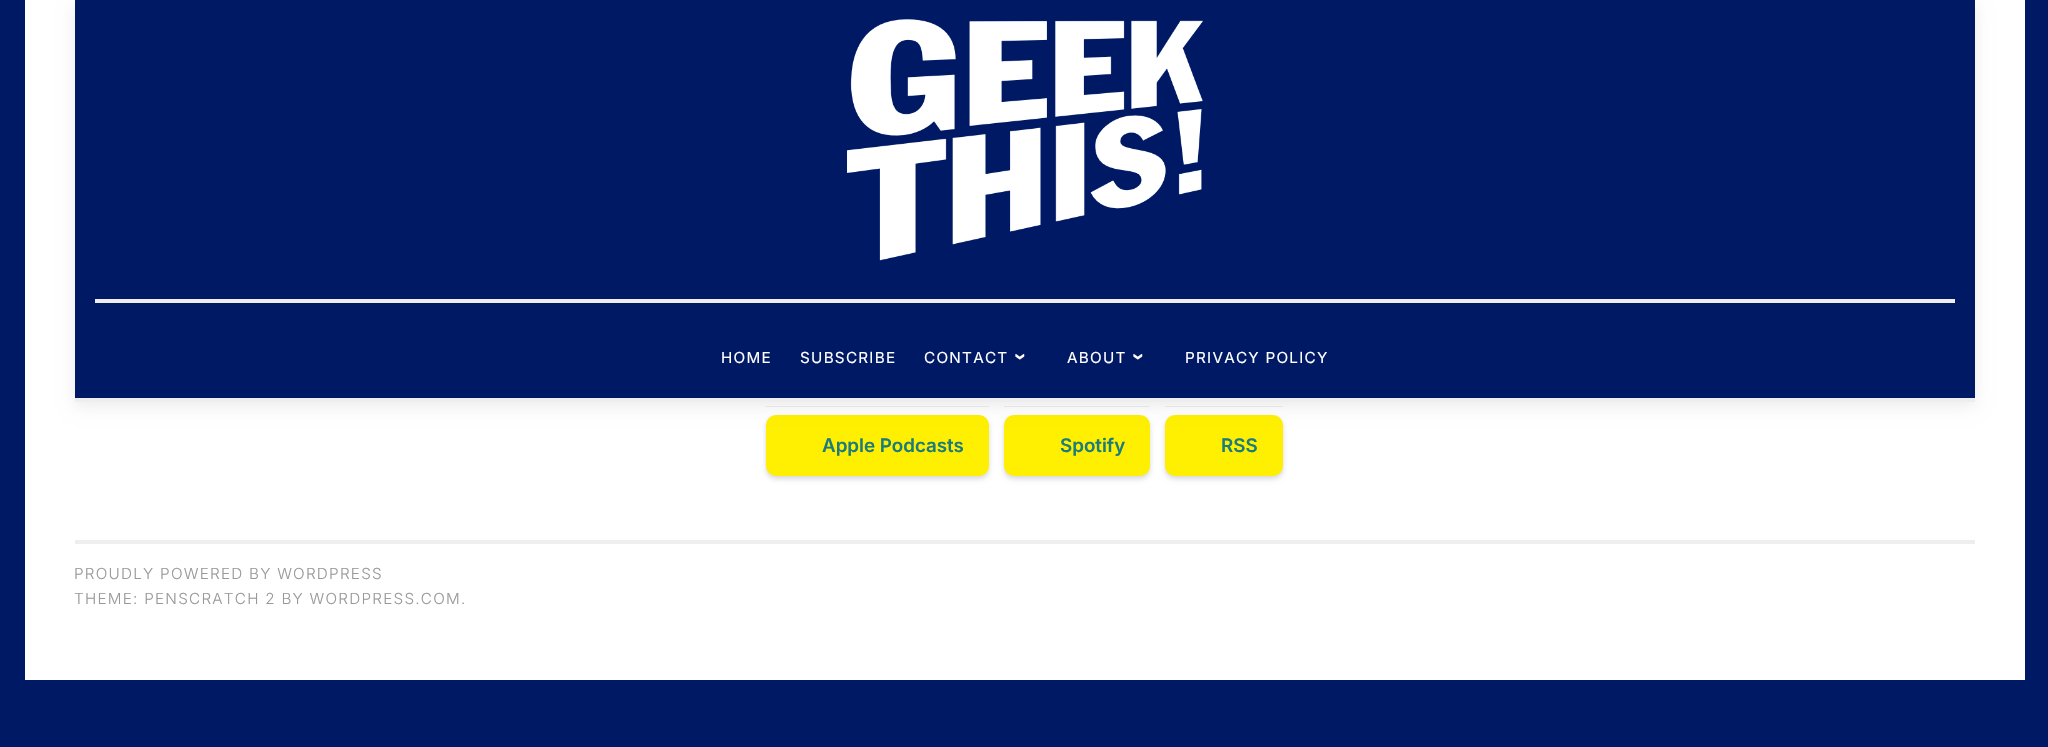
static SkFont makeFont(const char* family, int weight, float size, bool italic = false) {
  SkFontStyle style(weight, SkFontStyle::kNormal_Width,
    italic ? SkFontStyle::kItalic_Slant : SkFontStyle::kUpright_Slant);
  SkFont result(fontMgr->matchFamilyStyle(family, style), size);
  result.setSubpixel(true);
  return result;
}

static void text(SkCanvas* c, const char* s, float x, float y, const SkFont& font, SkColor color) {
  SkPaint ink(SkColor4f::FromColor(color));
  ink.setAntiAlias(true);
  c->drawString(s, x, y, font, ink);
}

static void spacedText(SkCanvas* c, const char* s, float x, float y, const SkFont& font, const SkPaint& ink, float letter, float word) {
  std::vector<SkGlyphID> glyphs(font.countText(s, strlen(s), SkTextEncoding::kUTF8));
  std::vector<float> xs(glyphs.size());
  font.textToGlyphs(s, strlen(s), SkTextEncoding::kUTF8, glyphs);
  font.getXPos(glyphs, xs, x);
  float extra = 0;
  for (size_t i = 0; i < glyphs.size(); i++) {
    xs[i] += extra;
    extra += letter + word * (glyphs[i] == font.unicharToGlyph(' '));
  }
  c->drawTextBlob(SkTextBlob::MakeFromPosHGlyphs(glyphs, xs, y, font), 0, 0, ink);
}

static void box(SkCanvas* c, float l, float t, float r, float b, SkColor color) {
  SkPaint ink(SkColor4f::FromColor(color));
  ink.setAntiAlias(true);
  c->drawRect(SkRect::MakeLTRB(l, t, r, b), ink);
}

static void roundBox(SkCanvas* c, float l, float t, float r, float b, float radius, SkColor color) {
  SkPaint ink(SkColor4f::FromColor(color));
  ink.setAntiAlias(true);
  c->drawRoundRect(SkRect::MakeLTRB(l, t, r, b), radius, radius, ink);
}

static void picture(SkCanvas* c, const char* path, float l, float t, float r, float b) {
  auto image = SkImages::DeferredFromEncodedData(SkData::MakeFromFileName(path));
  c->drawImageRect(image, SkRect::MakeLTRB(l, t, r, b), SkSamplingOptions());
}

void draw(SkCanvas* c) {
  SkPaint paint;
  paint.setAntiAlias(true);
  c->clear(0xff001964);
  box(c, 25, 0, 2025, 680, 0xffffffff);
  box(c, 766, 406, 989, 407, 0xffeeeeee);
  paint.setColor(0x26000000);
  paint.setMaskFilter(SkMaskFilter::MakeBlur(kNormal_SkBlurStyle, 2.5f));
  c->drawRoundRect(SkRect::MakeLTRB(766, 418, 989, 479), 10, 10, paint);
  paint.setMaskFilter(nullptr);
  roundBox(c, 766, 415, 989, 476, 10, 0xffffef00);
  box(c, 1004, 406, 1150, 407, 0xffeeeeee);
  paint.setMaskFilter(SkMaskFilter::MakeBlur(kNormal_SkBlurStyle, 2.5f));
  c->drawRoundRect(SkRect::MakeLTRB(1004, 418, 1150, 479), 10, 10, paint);
  paint.setMaskFilter(nullptr);
  roundBox(c, 1004, 415, 1150, 476, 10, 0xffffef00);
  box(c, 1165, 406, 1283, 407, 0xffeeeeee);
  paint.setMaskFilter(SkMaskFilter::MakeBlur(kNormal_SkBlurStyle, 2.5f));
  c->drawRoundRect(SkRect::MakeLTRB(1165, 418, 1283, 479), 10, 10, paint);
  paint.setMaskFilter(nullptr);
  roundBox(c, 1165, 415, 1283, 476, 10, 0xffffef00);
  paint.setColor(0x14000000);
  paint.setMaskFilter(SkMaskFilter::MakeBlur(kNormal_SkBlurStyle, 7.5f));
  c->drawRect(SkRect::MakeLTRB(75, 5, 1975, 406), paint);
  paint.setMaskFilter(nullptr);
  box(c, 75, 0, 1975, 398, 0xff001964);
  box(c, 75, 398, 1975, 402, 0xffeeeeee);
  picture(c, "img_01.png", 847, 19, 1203, 261);
  box(c, 95, 299, 1955, 303, 0xffeeeeee);
  SkFont face1 = makeFont("Inter", 400, 15.25f);
  paint.setColor(0xffffffff);
  spacedText(c, "HOME", 721, 363, face1, paint, 1.25f, 0);
  spacedText(c, "SUBSCRIBE", 800, 363, face1, paint, 1.25f, 0);
  spacedText(c, "CONTACT", 924, 363, face1, paint, 1.25f, 0);
  SkFont face2 = makeFont("Liberation Sans", 700, 22);
  c->save();
  c->rotate(90, 1014, 353);
  spacedText(c, "›", 1014, 353, face2, paint, 1.25f, 0);
  c->restore();
  spacedText(c, "ABOUT", 1067, 363, face1, paint, 1.25f, 0);
  c->save();
  c->rotate(90, 1132, 353);
  spacedText(c, "›", 1132, 353, face2, paint, 1.25f, 0);
  c->restore();
  spacedText(c, "PRIVACY POLICY", 1185, 363, face1, paint, 1.25f, 0);
  SkFont face3 = makeFont("Inter", 600, 18.75f);
  text(c, "Apple Podcasts", 822, 452, face3, 0xff1c7c7c);
  text(c, "Spotify", 1060, 452, face3, 0xff1c7c7c);
  text(c, "RSS", 1221, 452, face3, 0xff1c7c7c);
  box(c, 75, 540, 1975, 544, 0xffeeeeee);
  SkFont face4 = makeFont("Inter", 300, 15.25f);
  paint.setColor(0xff999999);
  spacedText(c, "PROUDLY POWERED BY WORDPRESS", 74, 579, face4, paint, 1.25f, 0);
  spacedText(c, "THEME: PENSCRATCH 2 BY WORDPRESS.COM.", 74, 604, face4, paint, 1.25f, 0);
}
